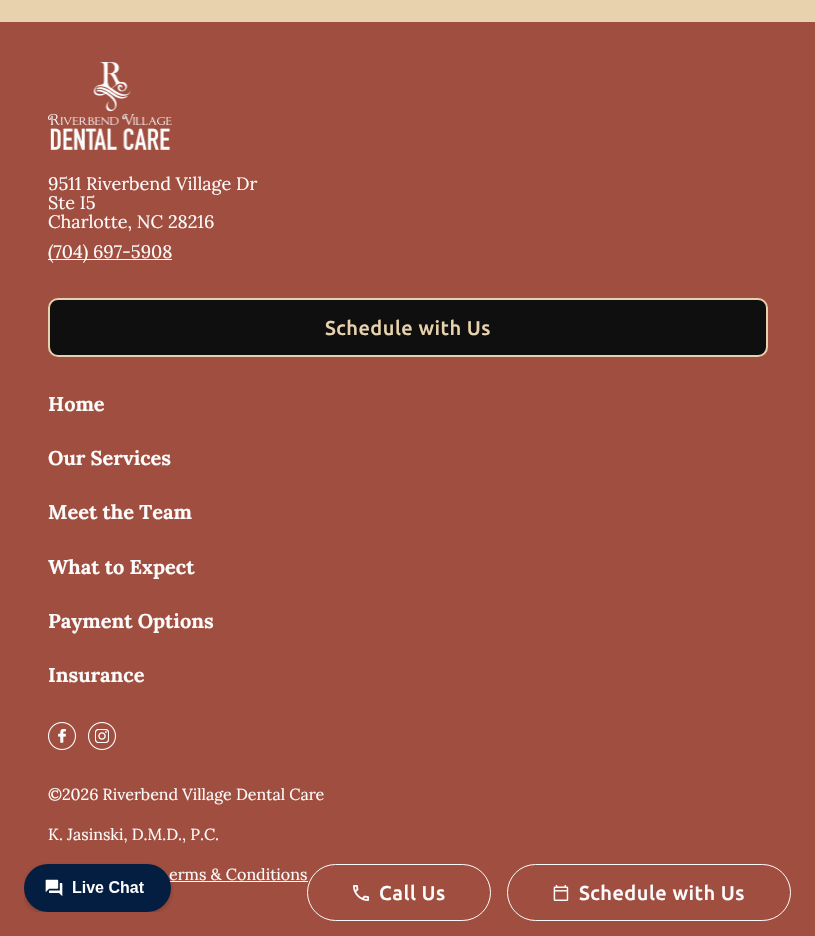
static SkFont makeFont(const char* family, int weight, float size, bool italic = false) {
  SkFontStyle style(weight, SkFontStyle::kNormal_Width,
    italic ? SkFontStyle::kItalic_Slant : SkFontStyle::kUpright_Slant);
  SkFont result(fontMgr->matchFamilyStyle(family, style), size);
  result.setSubpixel(true);
  return result;
}

static void text(SkCanvas* c, const char* s, float x, float y, const SkFont& font, SkColor color) {
  SkPaint ink(SkColor4f::FromColor(color));
  ink.setAntiAlias(true);
  c->drawString(s, x, y, font, ink);
}

static void spacedText(SkCanvas* c, const char* s, float x, float y, const SkFont& font, const SkPaint& ink, float letter, float word) {
  std::vector<SkGlyphID> glyphs(font.countText(s, strlen(s), SkTextEncoding::kUTF8));
  std::vector<float> xs(glyphs.size());
  font.textToGlyphs(s, strlen(s), SkTextEncoding::kUTF8, glyphs);
  font.getXPos(glyphs, xs, x);
  float extra = 0;
  for (size_t i = 0; i < glyphs.size(); i++) {
    xs[i] += extra;
    extra += letter + word * (glyphs[i] == font.unicharToGlyph(' '));
  }
  c->drawTextBlob(SkTextBlob::MakeFromPosHGlyphs(glyphs, xs, y, font), 0, 0, ink);
}

static void box(SkCanvas* c, float l, float t, float r, float b, SkColor color) {
  SkPaint ink(SkColor4f::FromColor(color));
  ink.setAntiAlias(true);
  c->drawRect(SkRect::MakeLTRB(l, t, r, b), ink);
}

static void picture(SkCanvas* c, const char* path, float l, float t, float r, float b) {
  auto image = SkImages::DeferredFromEncodedData(SkData::MakeFromFileName(path));
  c->drawImageRect(image, SkRect::MakeLTRB(l, t, r, b), SkSamplingOptions());
}

void draw(SkCanvas* c) {
  SkPaint paint;
  paint.setAntiAlias(true);
  c->clear(0xffe7d2ad);
  box(c, 0, 22, 815, 936, 0xffa04e3f);
  picture(c, "img_01.png", 48, 62, 172, 150);
  SkFont face1 = makeFont("Lora", 400, 18);
  text(c, "9511 Riverbend Village Dr", 48, 190, face1, 0xfffcfcfc);
  text(c, "Ste I5", 48, 209, face1, 0xfffcfcfc);
  text(c, "Charlotte, NC 28216", 48, 228, face1, 0xfffcfcfc);
  box(c, 48, 259, 172, 260, 0xfffcfcfc);
  text(c, "(704) 697-5908", 48, 258, face1, 0xfffcfcfc);
  paint.setColor(0xff0f0f0f);
  c->drawRoundRect(SkRect::MakeLTRB(49, 299, 767, 356), 9, 9, paint);
  paint.setStyle(SkPaint::kStroke_Style);
  paint.setStrokeWidth(2);
  paint.setColor(0xffe7d2ad);
  c->drawRoundRect(SkRect::MakeLTRB(49, 299, 767, 356), 9, 9, paint);
  SkFont face2 = makeFont("Ubuntu", 500, 20);
  paint.setStyle(SkPaint::kFill_Style);
  spacedText(c, "Schedule with Us", 325, 335, face2, paint, 0.5f, 0);
  SkFont face3 = makeFont("Lora", 700, 20);
  text(c, "Home", 48, 411, face3, 0xfffcfcfc);
  text(c, "Our Services", 48, 465, face3, 0xfffcfcfc);
  text(c, "Meet the Team", 48, 519, face3, 0xfffcfcfc);
  text(c, "What to Expect", 48, 574, face3, 0xfffcfcfc);
  text(c, "Payment Options", 48, 628, face3, 0xfffcfcfc);
  text(c, "Insurance", 48, 682, face3, 0xfffcfcfc);
  picture(c, "img_02.png", 48, 722, 76, 750);
  picture(c, "img_03.png", 88, 722, 116, 750);
  SkFont face4 = makeFont("Lora", 400, 16);
  text(c, "©2026 Riverbend Village Dental Care", 48, 800, face4, 0xfffcfcfc);
  text(c, "K. Jasinski, D.M.D., P.C.", 48, 840, face4, 0xfffcfcfc);
  text(c, "erms & Conditions", 169, 880, face4, 0xfffcfcfc);
  box(c, 169, 881, 308, 882, 0xfffcfcfc);
  paint.setStyle(SkPaint::kStroke_Style);
  paint.setStrokeWidth(1);
  paint.setColor(0xfffcfcfc);
  c->drawRoundRect(SkRect::MakeLTRB(307.5f, 864.5f, 490.5f, 920.5f), 28, 28, paint);
  picture(c, "img_04.png", 353, 885, 369, 901);
  paint.setStyle(SkPaint::kFill_Style);
  spacedText(c, "Call Us", 379, 900, face2, paint, 0.5f, 0);
  paint.setStyle(SkPaint::kStroke_Style);
  c->drawRoundRect(SkRect::MakeLTRB(507.5f, 864.5f, 790.5f, 920.5f), 28, 28, paint);
  picture(c, "img_05.png", 553, 885, 569, 901);
  paint.setStyle(SkPaint::kFill_Style);
  spacedText(c, "Schedule with Us", 579, 900, face2, paint, 0.5f, 0);
  picture(c, "img_06.png", 24, 863, 174, 912);
}
